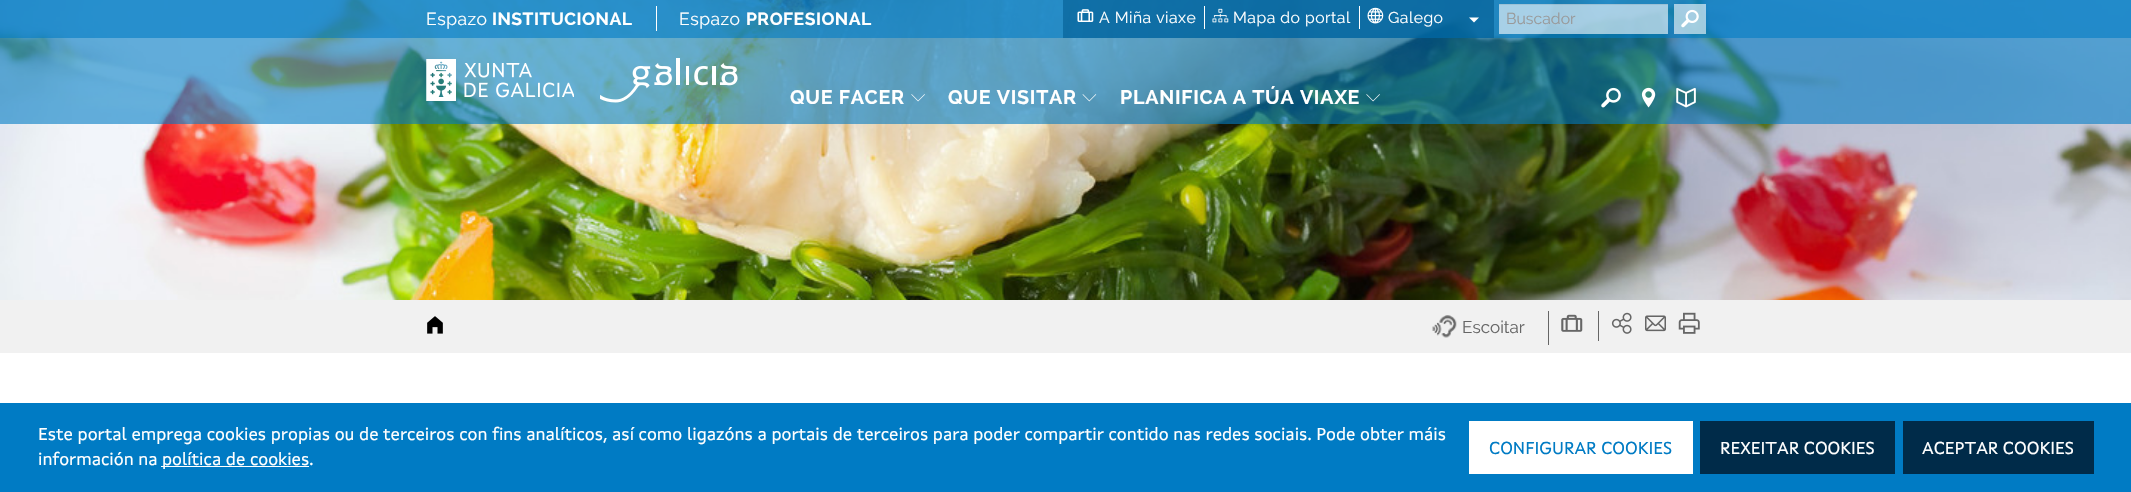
static SkFont makeFont(const char* family, int weight, float size, bool italic = false) {
  SkFontStyle style(weight, SkFontStyle::kNormal_Width,
    italic ? SkFontStyle::kItalic_Slant : SkFontStyle::kUpright_Slant);
  SkFont result(fontMgr->matchFamilyStyle(family, style), size);
  result.setSubpixel(true);
  return result;
}

static void text(SkCanvas* c, const char* s, float x, float y, const SkFont& font, SkColor color) {
  SkPaint ink(SkColor4f::FromColor(color));
  ink.setAntiAlias(true);
  c->drawString(s, x, y, font, ink);
}

static void spacedText(SkCanvas* c, const char* s, float x, float y, const SkFont& font, const SkPaint& ink, float letter, float word) {
  std::vector<SkGlyphID> glyphs(font.countText(s, strlen(s), SkTextEncoding::kUTF8));
  std::vector<float> xs(glyphs.size());
  font.textToGlyphs(s, strlen(s), SkTextEncoding::kUTF8, glyphs);
  font.getXPos(glyphs, xs, x);
  float extra = 0;
  for (size_t i = 0; i < glyphs.size(); i++) {
    xs[i] += extra;
    extra += letter + word * (glyphs[i] == font.unicharToGlyph(' '));
  }
  c->drawTextBlob(SkTextBlob::MakeFromPosHGlyphs(glyphs, xs, y, font), 0, 0, ink);
}

static void box(SkCanvas* c, float l, float t, float r, float b, SkColor color) {
  SkPaint ink(SkColor4f::FromColor(color));
  ink.setAntiAlias(true);
  c->drawRect(SkRect::MakeLTRB(l, t, r, b), ink);
}

static void picture(SkCanvas* c, const char* path, float l, float t, float r, float b) {
  auto image = SkImages::DeferredFromEncodedData(SkData::MakeFromFileName(path));
  c->drawImageRect(image, SkRect::MakeLTRB(l, t, r, b), SkSamplingOptions());
}

void draw(SkCanvas* c) {
  SkPaint paint;
  paint.setAntiAlias(true);
  c->clear(0xffffffff);
  picture(c, "img_13.png", 0, 0, 2131, 300);
  box(c, 0, 0, 2131, 124, 0x99007bc4);
  box(c, 0, 0, 2131, 38, 0x99007bc4);
  box(c, 656, 6, 657, 31, 0xffffffff);
  SkFont face1 = makeFont("Raleway", 400, 17.5f);
  paint.setColor(0xffffffff);
  spacedText(c, "Espazo", 426, 25, face1, paint, 0.5f, 0);
  SkFont face2 = makeFont("Raleway", 700, 17.5f);
  spacedText(c, "INSTITUCIONAL", 492, 25, face2, paint, 0.5f, 0);
  spacedText(c, "Espazo", 679, 25, face1, paint, 0.5f, 0);
  spacedText(c, "PROFESIONAL", 746, 25, face2, paint, 0.5f, 0);
  box(c, 1063, 0, 1494, 38, 0x99005b91);
  box(c, 1204, 6, 1205, 29, 0xffffffff);
  picture(c, "img_01.png", 1077, 9, 1094, 22);
  SkFont face3 = makeFont("Raleway", 400, 15.75f);
  spacedText(c, "A Miña viaxe", 1099, 23, face3, paint, 0.5f, 0);
  box(c, 1359, 6, 1360, 29, 0xffffffff);
  picture(c, "img_02.png", 1212, 8, 1229, 23);
  spacedText(c, "Mapa do portal", 1233, 23, face3, paint, 0.5f, 0);
  picture(c, "img_03.png", 1367, 7, 1384, 24);
  spacedText(c, "Galego", 1388, 23, face3, paint, 0.5f, 0);
  c->drawPath(SkPathBuilder().moveTo(1469, 17.5f).lineTo(1479, 17.5f).lineTo(1474, 22.5f).close().detach(), paint);
  box(c, 1499, 4, 1668, 34, 0x99ffffff);
  box(c, 1499, 4, 1668, 5, 0x12000000);
  text(c, "Buscador", 1506, 24, face3, 0xff999999);
  box(c, 1674, 4, 1706, 34, 0x99ffffff);
  picture(c, "img_04.png", 1681, 9, 1699, 28);
  picture(c, "img_05.png", 426, 59, 574, 101);
  picture(c, "img_06.png", 600, 58, 738, 103);
  SkFont face4 = makeFont("Raleway", 700, 19.6f);
  spacedText(c, "QUE FACER", 790, 104, face4, paint, 0.75f, 0);
  picture(c, "img_07.png", 911, 94, 925, 102);
  spacedText(c, "QUE VISITAR", 948, 104, face4, paint, 0.75f, 0);
  picture(c, "img_08.png", 1082, 94, 1097, 102);
  spacedText(c, "PLANIFICA A TÚA VIAXE", 1120, 104, face4, paint, 0.75f, 0);
  picture(c, "img_09.png", 1366, 94, 1380, 102);
  picture(c, "img_10.png", 1601, 87, 1621, 108);
  picture(c, "img_11.png", 1641, 87, 1656, 108);
  picture(c, "img_12.png", 1676, 87, 1696, 108);
  box(c, 0, 300, 2131, 353, 0xfff1f1f1);
  picture(c, "img_14.png", 427, 316, 443, 334);
  box(c, 1548, 311, 1549, 345, 0xff666666);
  picture(c, "img_15.png", 1432, 315, 1457, 338);
  SkFont face5 = makeFont("Raleway", 400, 17);
  text(c, "Escoitar", 1462, 333, face5, 0xff666666);
  box(c, 1598, 311, 1599, 341, 0xff666666);
  picture(c, "img_16.png", 1561, 314, 1583, 332);
  picture(c, "img_17.png", 1611, 312, 1632, 334);
  picture(c, "img_18.png", 1645, 315, 1666, 332);
  picture(c, "img_19.png", 1678, 312, 1700, 334);
  box(c, 0, 403, 2131, 492, 0xff007bc4);
  SkFont face6 = makeFont("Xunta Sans", 400, 17.5f);
  text(c, "Este portal emprega cookies propias ou de terceiros con fins analíticos, así como ligazóns a portais de terceiros para poder compartir contido nas redes sociais. Pode obter máis", 38, 440, face6, 0xffffffff);
  text(c, "información na", 38, 465, face6, 0xffffffff);
  box(c, 161, 466, 309, 467, 0xffffffff);
  text(c, "política de cookies.", 162, 465, face6, 0xffffffff);
  box(c, 1469, 421, 1693, 474, 0xffffffff);
  text(c, "CONFIGURAR COOKIES", 1489, 454, face6, 0xff007bc4);
  box(c, 1700, 421, 1895, 474, 0xff002b49);
  text(c, "REXEITAR COOKIES", 1720, 454, face6, 0xffffffff);
  box(c, 1903, 421, 2094, 474, 0xff002b49);
  text(c, "ACEPTAR COOKIES", 1922, 454, face6, 0xffffffff);
}
